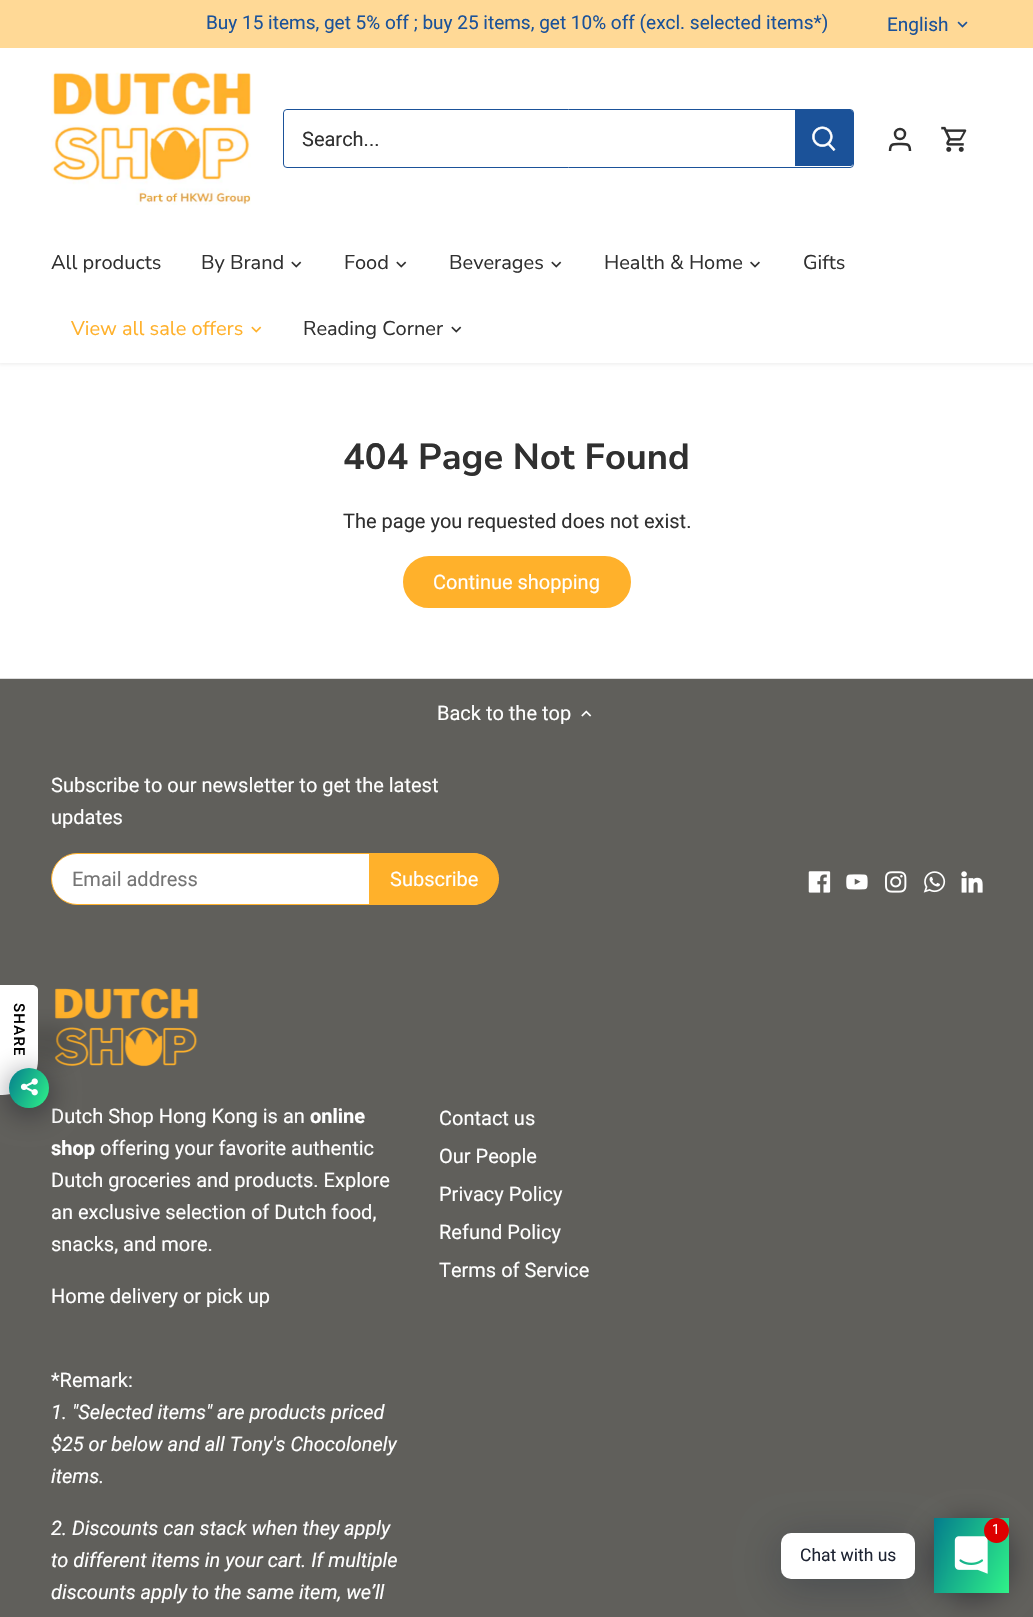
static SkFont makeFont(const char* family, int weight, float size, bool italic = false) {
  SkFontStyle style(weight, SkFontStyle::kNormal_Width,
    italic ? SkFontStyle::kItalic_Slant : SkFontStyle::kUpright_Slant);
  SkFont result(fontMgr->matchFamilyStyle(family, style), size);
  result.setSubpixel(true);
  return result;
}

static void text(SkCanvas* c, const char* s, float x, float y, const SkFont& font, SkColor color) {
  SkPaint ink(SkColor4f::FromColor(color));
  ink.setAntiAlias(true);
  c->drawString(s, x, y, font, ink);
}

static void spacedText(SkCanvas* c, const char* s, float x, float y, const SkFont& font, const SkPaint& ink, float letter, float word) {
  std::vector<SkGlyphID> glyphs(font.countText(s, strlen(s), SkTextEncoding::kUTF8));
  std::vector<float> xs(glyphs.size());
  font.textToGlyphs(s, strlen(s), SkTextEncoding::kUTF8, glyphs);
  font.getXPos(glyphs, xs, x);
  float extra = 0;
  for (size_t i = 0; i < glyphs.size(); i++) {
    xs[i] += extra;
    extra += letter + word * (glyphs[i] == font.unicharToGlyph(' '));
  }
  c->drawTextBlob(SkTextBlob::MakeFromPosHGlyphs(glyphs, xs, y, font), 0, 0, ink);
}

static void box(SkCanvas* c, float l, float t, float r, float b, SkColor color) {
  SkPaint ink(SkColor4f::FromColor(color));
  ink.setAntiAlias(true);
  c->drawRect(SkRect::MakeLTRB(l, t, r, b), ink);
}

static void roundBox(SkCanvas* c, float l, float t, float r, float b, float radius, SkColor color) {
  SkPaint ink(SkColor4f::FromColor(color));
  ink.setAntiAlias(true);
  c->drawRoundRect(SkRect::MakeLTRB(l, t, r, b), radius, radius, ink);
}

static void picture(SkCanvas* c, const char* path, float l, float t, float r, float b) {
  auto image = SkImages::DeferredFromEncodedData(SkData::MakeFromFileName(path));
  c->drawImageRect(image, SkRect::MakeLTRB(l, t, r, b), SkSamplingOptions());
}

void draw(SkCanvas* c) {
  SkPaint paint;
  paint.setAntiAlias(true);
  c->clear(0xff605f5b);
  box(c, 0, 363, 1033, 678, 0xffffffff);
  paint.setColor(0x14000000);
  paint.setMaskFilter(SkMaskFilter::MakeBlur(kNormal_SkBlurStyle, 2));
  c->drawRect(SkRect::MakeLTRB(-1, 46, 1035, 364), paint);
  paint.setMaskFilter(nullptr);
  box(c, 0, 0, 1033, 48, 0xffffd996);
  SkFont face1 = makeFont("Roboto", 400, 19);
  text(c, "Buy 15 items, get 5% off ; buy 25 items, get 10% off (excl. selected items*)", 206, 29, face1, 0xff1b5299);
  text(c, "English", 887, 31, face1, 0xff1b5299);
  picture(c, "img_01.png", 957, 21, 968, 28);
  box(c, 0, 48, 1033, 363, 0xffffffff);
  picture(c, "img_02.png", 51, 72, 251, 205);
  paint.setStyle(SkPaint::kStroke_Style);
  paint.setStrokeWidth(1);
  paint.setColor(0xff1b5299);
  c->drawRoundRect(SkRect::MakeLTRB(283.5f, 109.5f, 853.5f, 167.5f), 3.5f, 3.5f, paint);
  paint.setStyle(SkPaint::kFill_Style);
  paint.setColor(0xffffffff);
  c->drawPath(SkPathBuilder().moveTo(288, 110).lineTo(796, 110).lineTo(796, 166).lineTo(288, 166).cubicTo(286, 166, 284, 164, 284, 162).lineTo(284, 114).cubicTo(284, 112, 286, 110, 288, 110).close().detach(), paint);
  SkFont face2 = makeFont("Roboto", 400, 20);
  text(c, "Search...", 302, 146, face2, 0xff303030);
  paint.setColor(0xff1b5299);
  c->drawPath(SkPathBuilder().moveTo(795, 110).lineTo(850.5f, 110).cubicTo(852, 110, 853, 111, 853, 112.5f).lineTo(853, 163.5f).cubicTo(853, 165, 852, 166, 850.5f, 166).lineTo(795, 166).close().detach(), paint);
  picture(c, "img_03.png", 812, 126, 836, 151);
  paint.setStyle(SkPaint::kStroke_Style);
  paint.setStrokeWidth(2.5f);
  paint.setColor(0xff303030);
  c->drawCircle(900, 134, 5, paint);
  c->drawPath(SkPathBuilder().moveTo(910, 151).cubicTo(910, 143.5f, 907, 144, 900, 144).cubicTo(893, 144, 890, 143.5f, 890, 151).detach(), paint);
  picture(c, "img_04.png", 941, 126, 967, 152);
  SkFont face3 = makeFont("Nunito Sans", 400, 20);
  text(c, "All products", 51, 269, face3, 0xff303030);
  text(c, "By Brand", 201, 269, face3, 0xff303030);
  picture(c, "img_05.png", 291, 261, 302, 268);
  text(c, "Food", 344, 269, face3, 0xff303030);
  picture(c, "img_05.png", 396, 261, 407, 268);
  text(c, "Beverages", 449, 269, face3, 0xff303030);
  picture(c, "img_05.png", 551, 261, 562, 268);
  text(c, "Health & Home", 604, 269, face3, 0xff303030);
  picture(c, "img_06.png", 750, 261, 760, 268);
  text(c, "Gifts", 803, 269, face3, 0xff303030);
  text(c, "View all sale offers", 71, 335, face3, 0xffffb12b);
  picture(c, "img_07.png", 251, 326, 262, 333);
  text(c, "Reading Corner", 303, 335, face3, 0xff303030);
  picture(c, "img_05.png", 451, 326, 462, 333);
  SkFont face4 = makeFont("Nunito Sans", 700, 36.25f);
  text(c, "404 Page Not Found", 343, 469, face4, 0xff303030);
  text(c, "The page you requested does not exist.", 343, 528, face2, 0xff303030);
  paint.setStyle(SkPaint::kFill_Style);
  paint.setColor(0xffffb12b);
  c->drawRoundRect(SkRect::MakeLTRB(404.5f, 557.5f, 629.5f, 606.5f), 24.5f, 24.5f, paint);
  paint.setStyle(SkPaint::kStroke_Style);
  paint.setStrokeWidth(3);
  c->drawRoundRect(SkRect::MakeLTRB(404.5f, 557.5f, 629.5f, 606.5f), 24.5f, 24.5f, paint);
  text(c, "Continue shopping", 433, 589, face2, 0xffffffff);
  box(c, 0, 678, 1033, 679, 0xffdcdcdc);
  text(c, "Back to the top", 437, 720, face2, 0xffffffff);
  picture(c, "img_08.png", 581, 710, 592, 717);
  text(c, "Subscribe to our newsletter to get the latest", 51, 792, face2, 0xffffffff);
  text(c, "updates", 51, 824, face2, 0xffffffff);
  paint.setStyle(SkPaint::kFill_Style);
  paint.setColor(0xffffffff);
  c->drawRoundRect(SkRect::MakeLTRB(51.5f, 853.5f, 497.5f, 904.5f), 25.5f, 25.5f, paint);
  paint.setStyle(SkPaint::kStroke_Style);
  paint.setStrokeWidth(1);
  paint.setColor(0xffffb12b);
  c->drawRoundRect(SkRect::MakeLTRB(51.5f, 853.5f, 497.5f, 904.5f), 25.5f, 25.5f, paint);
  text(c, "Email address", 72, 886, face2, 0xff757575);
  paint.setStyle(SkPaint::kFill_Style);
  c->drawPath(SkPathBuilder().moveTo(369.5f, 853.5f).lineTo(473, 853.5f).cubicTo(487, 853.5f, 498.5f, 865, 498.5f, 879).cubicTo(498.5f, 893, 487, 904.5f, 473, 904.5f).lineTo(369.5f, 904.5f).close().detach(), paint);
  paint.setStyle(SkPaint::kStroke_Style);
  c->drawPath(SkPathBuilder().moveTo(369.5f, 853.5f).lineTo(473, 853.5f).cubicTo(487, 853.5f, 498.5f, 865, 498.5f, 879).cubicTo(498.5f, 893, 487, 904.5f, 473, 904.5f).lineTo(369.5f, 904.5f).close().detach(), paint);
  text(c, "Subscribe", 390, 886, face2, 0xffffffff);
  picture(c, "img_09.png", 808, 871, 831, 893);
  picture(c, "img_10.png", 846, 874, 868, 890);
  picture(c, "img_11.png", 885, 871, 907, 893);
  picture(c, "img_12.png", 923, 871, 946, 893);
  picture(c, "img_13.png", 961, 871, 983, 893);
  picture(c, "img_14.png", 54, 988, 199, 1067);
  text(c, "Dutch Shop Hong Kong is an", 51, 1123, face2, 0xffffffff);
  SkFont face5 = makeFont("Roboto", 700, 20);
  text(c, "online", 310, 1123, face5, 0xffffffff);
  text(c, "shop", 51, 1155, face5, 0xffffffff);
  text(c, "offering your favorite authentic", 100, 1155, face2, 0xffffffff);
  text(c, "Dutch groceries and products. Explore", 51, 1187, face2, 0xffffffff);
  text(c, "an exclusive selection of Dutch food,", 51, 1219, face2, 0xffffffff);
  text(c, "snacks, and more.", 51, 1251, face2, 0xffffffff);
  text(c, "Home delivery or pick up", 51, 1303, face2, 0xffffffff);
  text(c, "*Remark:", 51, 1387, face2, 0xffffffff);
  SkFont face6 = makeFont("Roboto", 400, 20, true);
  text(c, "1. \"Selected items\" are products priced", 51, 1419, face6, 0xffffffff);
  text(c, "$25 or below and all Tony's Chocolonely", 51, 1451, face6, 0xffffffff);
  text(c, "items.", 51, 1483, face6, 0xffffffff);
  text(c, "2. Discounts can stack when they apply", 51, 1535, face6, 0xffffffff);
  text(c, "to different items in your cart. If multiple", 51, 1567, face6, 0xffffffff);
  text(c, "discounts apply to the same item, we’ll", 51, 1599, face6, 0xffffffff);
  text(c, "Contact us", 439, 1125, face2, 0xffffffff);
  text(c, "Our People", 439, 1163, face2, 0xffffffff);
  text(c, "Privacy Policy", 439, 1201, face2, 0xffffffff);
  text(c, "Refund Policy", 439, 1239, face2, 0xffffffff);
  text(c, "Terms of Service", 439, 1277, face2, 0xffffffff);
  paint.setStyle(SkPaint::kFill_Style);
  paint.setColor(0x26000000);
  paint.setMaskFilter(SkMaskFilter::MakeBlur(kNormal_SkBlurStyle, 9));
  c->drawRoundRect(SkRect::MakeLTRB(-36, 1025, 74, 1063), 35, 35, paint);
  paint.setMaskFilter(nullptr);
  paint.setColor(0xffffffff);
  c->drawPath(SkPathBuilder().moveTo(0, 1095).lineTo(0, 985).lineTo(32, 985).cubicTo(35, 985, 38, 987, 38, 990).lineTo(38, 1060).cubicTo(38, 1079, 22, 1095, 2, 1095).close().detach(), paint);
  SkFont face7 = makeFont("Roboto", 500, 15);
  paint.setColor(0xff000000);
  c->save();
  c->rotate(90, 14, 1003);
  spacedText(c, "SHARE", 14, 1003, face7, paint, 1.25f, 0);
  c->restore();
  paint.setColor(0x80020610);
  paint.setMaskFilter(SkMaskFilter::MakeBlur(kNormal_SkBlurStyle, 15));
  c->drawRoundRect(SkRect::MakeLTRB(9, 1073, 49, 1113), 20, 20, paint);
  paint.setMaskFilter(nullptr);
  {
    const SkColor colors[] = {0xff047c8d, 0xff2ff289};
    const float stops[] = {0, 1};
    const SkPoint ends[] = {{4.7f, 1076}, {53, 1099}};
    paint.setShader(SkGradientShader::MakeLinear(ends, colors, stops, 2, SkTileMode::kClamp));
    paint.setAlpha(255);
  }
  c->drawCircle(29, 1088, 20, paint);
  picture(c, "img_15.png", 20, 1078, 38, 1096);
  paint.setShader(nullptr);
  paint.setColor(0x80020610);
  paint.setMaskFilter(SkMaskFilter::MakeBlur(kNormal_SkBlurStyle, 15));
  c->drawRoundRect(SkRect::MakeLTRB(934, 1523, 1009, 1598), 37.5f, 37.5f, paint);
  paint.setMaskFilter(nullptr);
  {
    const SkColor colors[] = {0xff047c8d, 0xff2ff289};
    const float stops[] = {0, 1};
    const SkPoint ends[] = {{926, 1534}, {1016, 1576}};
    paint.setShader(SkGradientShader::MakeLinear(ends, colors, stops, 2, SkTileMode::kClamp));
    paint.setAlpha(255);
  }
  c->drawRect(SkRect::MakeLTRB(934, 1518, 1009, 1593), paint);
  paint.setShader(nullptr);
  paint.setColor(0x3d00122e);
  paint.setMaskFilter(SkMaskFilter::MakeBlur(kNormal_SkBlurStyle, 20));
  c->drawRoundRect(SkRect::MakeLTRB(781, 1540, 915, 1586), 10, 10, paint);
  paint.setMaskFilter(nullptr);
  picture(c, "img_16.png", 954, 1536, 988, 1574);
  paint.setColor(0xffdd0000);
  c->drawCircle(996.5f, 1530.5f, 12.5f, paint);
  SkFont face8 = makeFont("Roboto", 400, 14);
  text(c, "1", 992, 1534, face8, 0xffffffff);
  roundBox(c, 781, 1533, 915, 1579, 10, 0xffffffff);
  SkFont face9 = makeFont("Roboto", 400, 17.5f);
  text(c, "Chat with us", 800, 1561, face9, 0xff1e2433);
}
